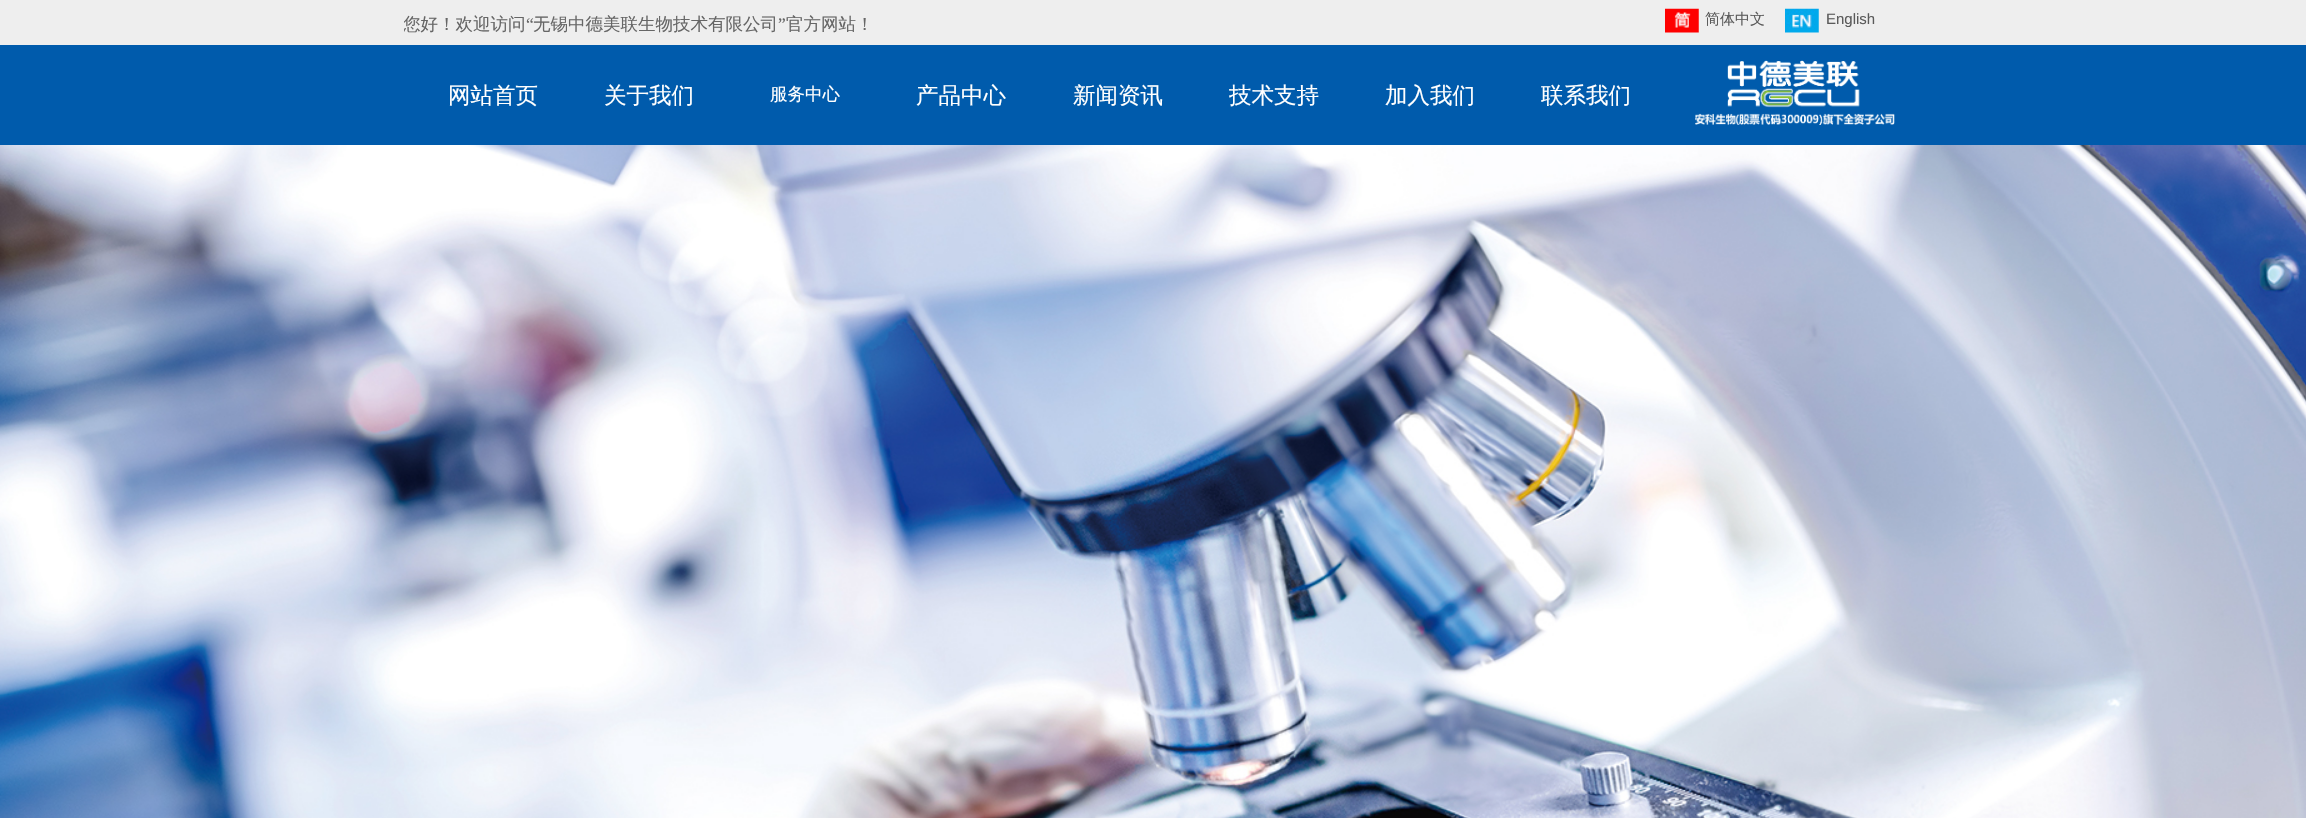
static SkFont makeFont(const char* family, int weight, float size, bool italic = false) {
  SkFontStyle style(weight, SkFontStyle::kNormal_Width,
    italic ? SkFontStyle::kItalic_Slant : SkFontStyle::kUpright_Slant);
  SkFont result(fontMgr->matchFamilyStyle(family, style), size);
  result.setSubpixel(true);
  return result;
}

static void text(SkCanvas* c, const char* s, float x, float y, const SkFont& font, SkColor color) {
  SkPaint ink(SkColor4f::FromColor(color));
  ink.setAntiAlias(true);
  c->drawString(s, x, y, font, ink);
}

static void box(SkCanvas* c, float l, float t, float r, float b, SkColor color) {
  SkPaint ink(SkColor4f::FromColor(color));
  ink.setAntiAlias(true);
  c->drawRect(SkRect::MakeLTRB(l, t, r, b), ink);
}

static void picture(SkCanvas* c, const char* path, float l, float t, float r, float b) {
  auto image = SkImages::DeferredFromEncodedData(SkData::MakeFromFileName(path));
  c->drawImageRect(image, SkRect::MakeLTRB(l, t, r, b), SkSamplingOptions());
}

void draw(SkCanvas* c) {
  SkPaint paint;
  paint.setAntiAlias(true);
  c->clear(0xffeeeeee);
  c->save();
  c->clipRect(SkRect::MakeLTRB(404, 13, 1149, 34));
  SkFont face1 = makeFont("WenQuanYi Zen Hei", 500, 17.5f);
  text(c, "您好！欢迎访问", 403, 30, face1, 0xff666666);
  c->restore();
  SkFont face2 = makeFont("Liberation Serif", 400, 17.5f);
  text(c, "“", 526, 30, face2, 0xff666666);
  text(c, "无锡中德美联生物技术有限公司", 533, 30, face1, 0xff666666);
  text(c, "”", 778, 30, face2, 0xff666666);
  text(c, "官方网站！", 786, 30, face1, 0xff666666);
  picture(c, "img_01.png", 1665, 8, 1699, 33);
  SkFont face3 = makeFont("WenQuanYi Zen Hei", 500, 15);
  text(c, "简体中文", 1705, 24, face3, 0xff5a5a5a);
  picture(c, "img_02.png", 1785, 8, 1819, 33);
  SkFont face4 = makeFont("Liberation Sans", 400, 15);
  text(c, "English", 1826, 24, face4, 0xff5a5a5a);
  box(c, 0, 45, 2306, 145, 0xff005bac);
  SkFont face5 = makeFont("WenQuanYi Zen Hei", 500, 22.5f);
  text(c, "网站首页", 448, 103, face5, 0xffffffff);
  text(c, "关于我们", 604, 103, face5, 0xffffffff);
  text(c, "服务中心", 770, 100, face1, 0xffffffff);
  text(c, "产品中心", 916, 103, face5, 0xffffffff);
  text(c, "新闻资讯", 1073, 103, face5, 0xffffffff);
  text(c, "技术支持", 1229, 103, face5, 0xffffffff);
  text(c, "加入我们", 1385, 103, face5, 0xffffffff);
  text(c, "联系我们", 1541, 103, face5, 0xffffffff);
  picture(c, "img_03.png", 1695, 60, 1895, 125);
  picture(c, "img_04.png", 0, 145, 2306, 818);
}
